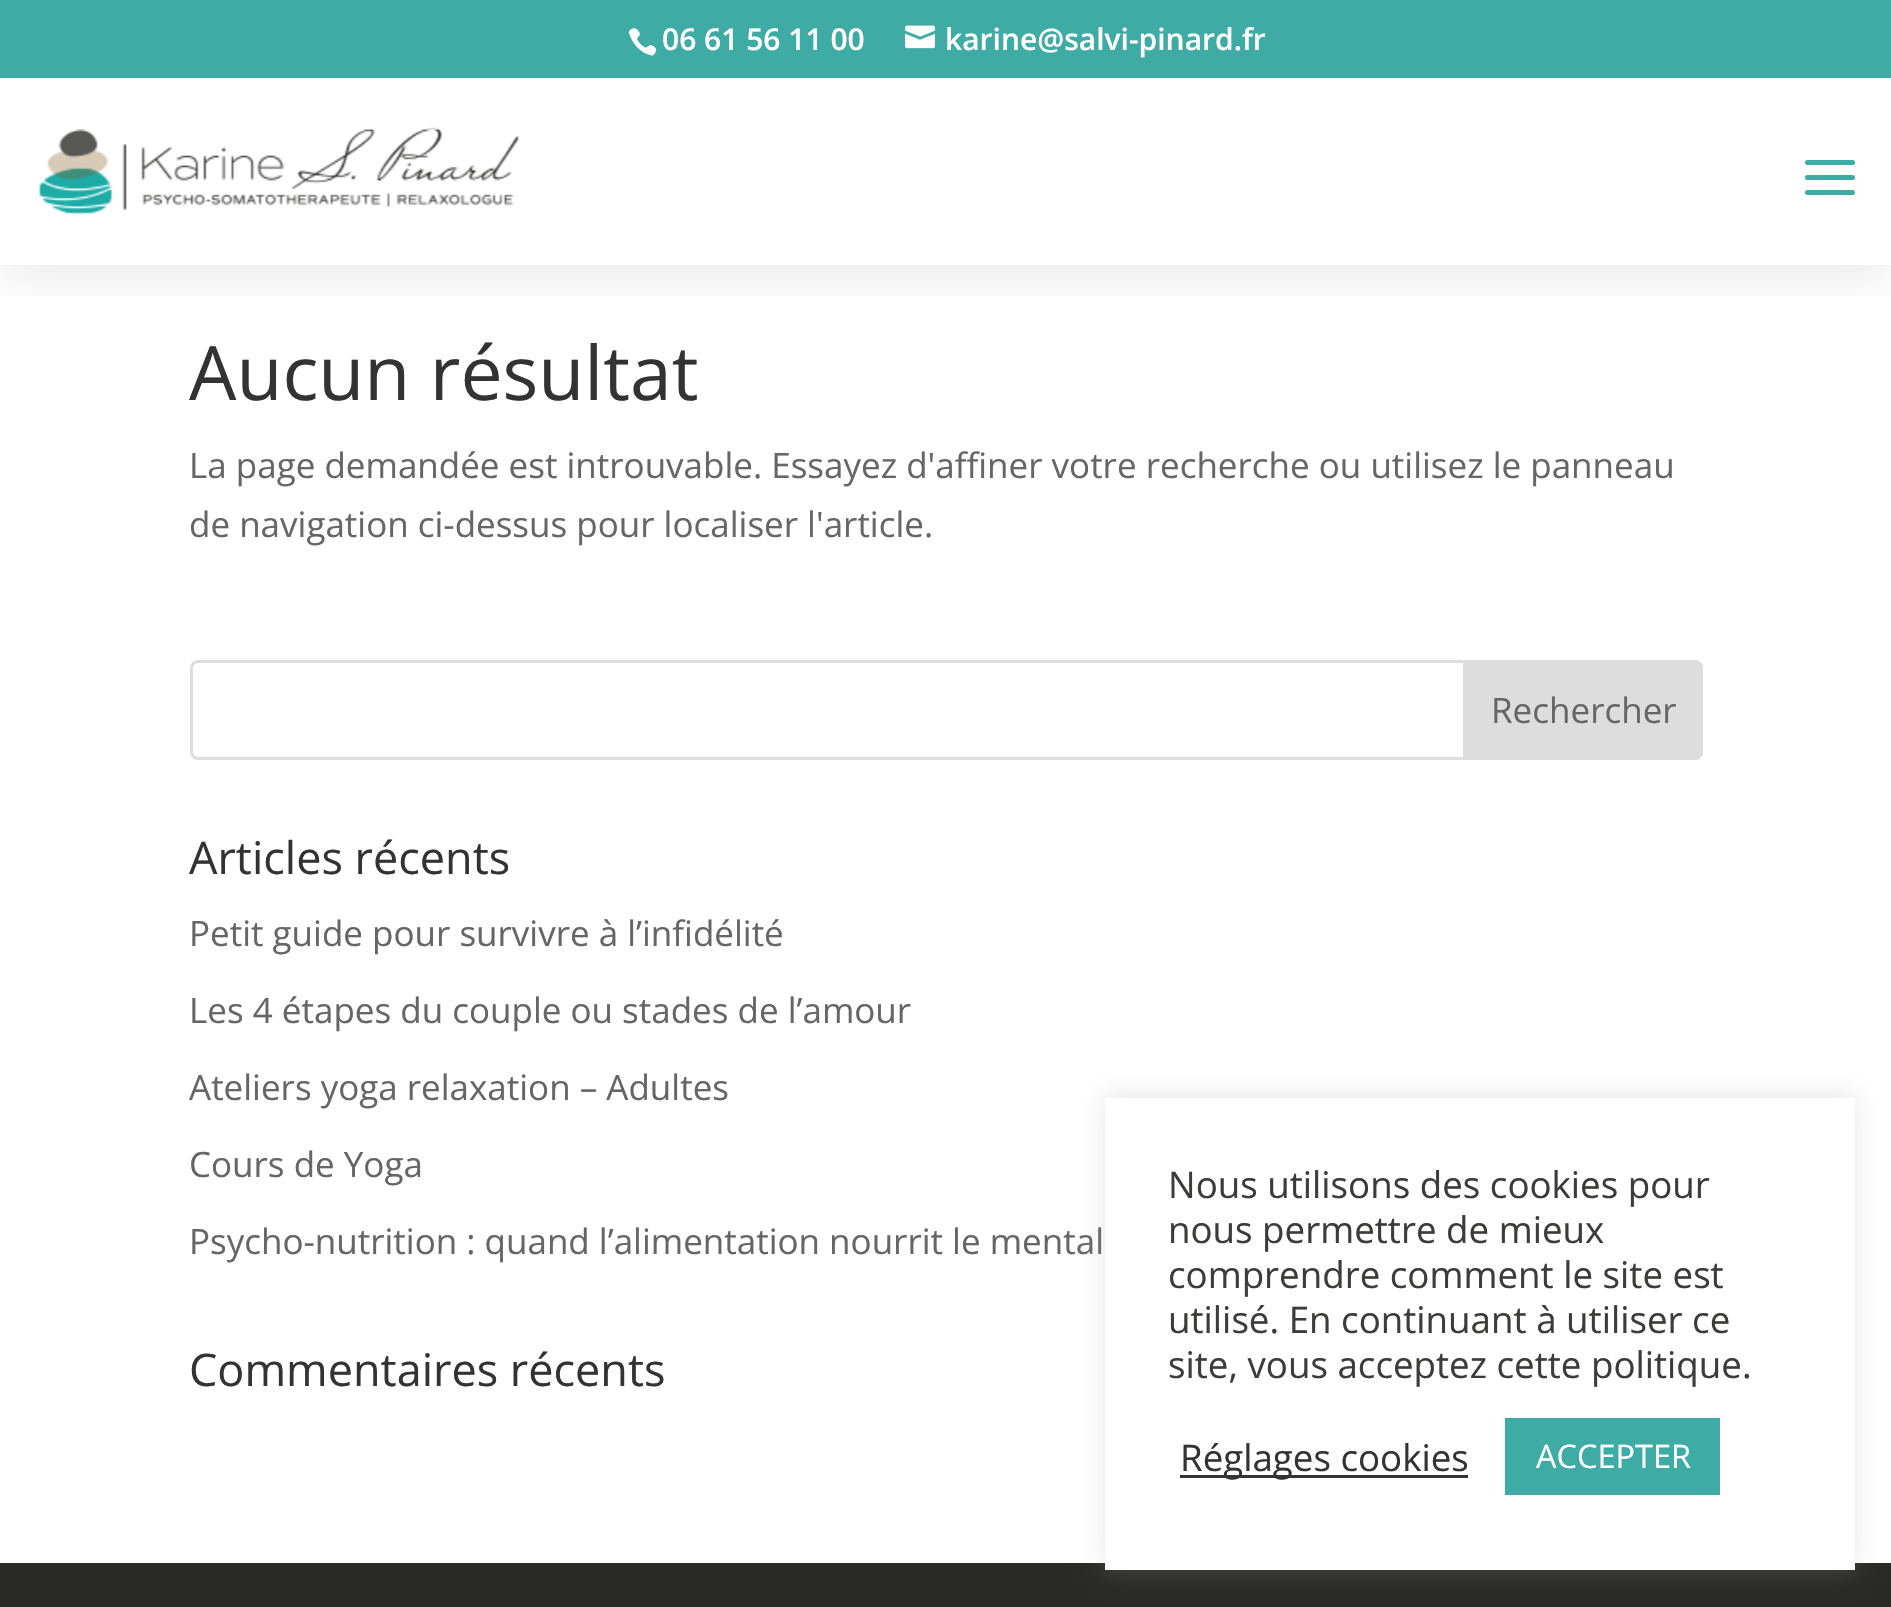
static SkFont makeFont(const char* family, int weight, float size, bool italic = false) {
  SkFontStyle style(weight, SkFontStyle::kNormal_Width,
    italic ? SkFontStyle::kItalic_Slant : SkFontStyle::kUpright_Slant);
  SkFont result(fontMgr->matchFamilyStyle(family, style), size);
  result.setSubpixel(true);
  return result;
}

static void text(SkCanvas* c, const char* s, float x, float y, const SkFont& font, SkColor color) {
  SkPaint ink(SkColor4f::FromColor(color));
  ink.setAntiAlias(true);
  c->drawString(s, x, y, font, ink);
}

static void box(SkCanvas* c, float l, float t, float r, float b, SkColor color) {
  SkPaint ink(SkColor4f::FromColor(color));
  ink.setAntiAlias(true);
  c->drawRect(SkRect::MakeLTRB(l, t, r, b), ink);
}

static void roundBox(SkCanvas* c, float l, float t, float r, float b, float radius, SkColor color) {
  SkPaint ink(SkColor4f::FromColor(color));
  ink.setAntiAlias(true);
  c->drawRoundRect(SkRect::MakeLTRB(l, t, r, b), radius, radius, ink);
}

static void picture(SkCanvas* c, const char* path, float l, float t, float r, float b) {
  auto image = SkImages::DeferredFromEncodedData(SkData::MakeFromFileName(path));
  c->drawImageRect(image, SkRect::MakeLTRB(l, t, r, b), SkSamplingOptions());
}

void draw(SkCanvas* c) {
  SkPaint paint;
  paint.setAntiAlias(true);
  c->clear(0xffffffff);
  c->save();
  c->clipRect(SkRect::MakeLTRB(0, 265, 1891, 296));
  paint.setColor(0x1a000000);
  paint.setMaskFilter(SkMaskFilter::MakeBlur(kNormal_SkBlurStyle, 31));
  c->drawRect(SkRect::MakeLTRB(0, 83, 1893, 270), paint);
  paint.setMaskFilter(nullptr);
  c->restore();
  picture(c, "img_01.png", 38, 127, 520, 215);
  roundBox(c, 1805, 175, 1855, 180, 2.5f, 0xff3eaba5);
  roundBox(c, 1805, 160, 1855, 165, 2.5f, 0xff3eaba5);
  roundBox(c, 1805, 190, 1855, 195, 2.5f, 0xff3eaba5);
  box(c, 0, 0, 1891, 78, 0xff3eaba5);
  picture(c, "img_02.png", 628, 28, 657, 56);
  SkFont face1 = makeFont("Open Sans", 600, 30);
  text(c, "06 61 56 11 00", 662, 50, face1, 0xffffffff);
  picture(c, "img_03.png", 905, 25, 935, 49);
  text(c, "karine@salvi-pinard.fr", 945, 50, face1, 0xffffffff);
  SkFont face2 = makeFont("Open Sans", 400, 75);
  text(c, "Aucun résultat", 189, 400, face2, 0xff333333);
  SkFont face3 = makeFont("Open Sans", 400, 35);
  text(c, "La page demandée est introuvable. Essayez d'affiner votre recherche ou utilisez le panneau", 189, 478, face3, 0xff666666);
  text(c, "de navigation ci-dessus pour localiser l'article.", 189, 537, face3, 0xff666666);
  paint.setStyle(SkPaint::kStroke_Style);
  paint.setStrokeWidth(3);
  paint.setColor(0xffdddddd);
  c->drawRoundRect(SkRect::MakeLTRB(191.5f, 661.5f, 1701.5f, 758.5f), 6.5f, 6.5f, paint);
  paint.setStyle(SkPaint::kFill_Style);
  c->drawPath(SkPathBuilder().moveTo(1464.5f, 661.5f).lineTo(1695, 661.5f).cubicTo(1698.5f, 661.5f, 1701.5f, 664.5f, 1701.5f, 668).lineTo(1701.5f, 752).cubicTo(1701.5f, 755.5f, 1698.5f, 758.5f, 1695, 758.5f).lineTo(1464.5f, 758.5f).close().detach(), paint);
  paint.setStyle(SkPaint::kStroke_Style);
  c->drawPath(SkPathBuilder().moveTo(1464.5f, 661.5f).lineTo(1695, 661.5f).cubicTo(1698.5f, 661.5f, 1701.5f, 664.5f, 1701.5f, 668).lineTo(1701.5f, 752).cubicTo(1701.5f, 755.5f, 1698.5f, 758.5f, 1695, 758.5f).lineTo(1464.5f, 758.5f).close().detach(), paint);
  text(c, "Rechercher", 1491, 723, face3, 0xff666666);
  SkFont face4 = makeFont("Open Sans", 400, 45);
  text(c, "Articles récents", 189, 874, face4, 0xff333333);
  text(c, "Petit guide pour survivre à l’infidélité", 189, 946, face3, 0xff666666);
  text(c, "Les 4 étapes du couple ou stades de l’amour", 189, 1023, face3, 0xff666666);
  text(c, "Ateliers yoga relaxation – Adultes", 189, 1100, face3, 0xff666666);
  text(c, "Cours de Yoga", 189, 1177, face3, 0xff666666);
  text(c, "Psycho-nutrition : quand l’alimentation nourrit le mental", 189, 1254, face3, 0xff666666);
  text(c, "Commentaires récents", 189, 1386, face4, 0xff333333);
  box(c, 0, 1563, 1891, 1607, 0xff292928);
  paint.setStyle(SkPaint::kFill_Style);
  paint.setColor(0x4dacabab);
  paint.setMaskFilter(SkMaskFilter::MakeBlur(kNormal_SkBlurStyle, 12.5f));
  c->drawRect(SkRect::MakeLTRB(1105, 1095, 1855, 1568), paint);
  paint.setMaskFilter(nullptr);
  box(c, 1105, 1098, 1855, 1570, 0xffffffff);
  SkFont face5 = makeFont("Open Sans", 400, 36.7f);
  text(c, "Nous utilisons des cookies pour", 1168, 1198, face5, 0xff3c3c3b);
  text(c, "nous permettre de mieux", 1168, 1243, face5, 0xff3c3c3b);
  text(c, "comprendre comment le site est", 1168, 1288, face5, 0xff3c3c3b);
  text(c, "utilisé. En continuant à utiliser ce", 1168, 1333, face5, 0xff3c3c3b);
  text(c, "site, vous acceptez cette politique.", 1168, 1378, face5, 0xff3c3c3b);
  box(c, 1180, 1475, 1468, 1478, 0xff333333);
  text(c, "Réglages cookies", 1180, 1471, face5, 0xff333333);
  box(c, 1505, 1418, 1720, 1495, 0xff3eaba5);
  SkFont face6 = makeFont("Open Sans", 400, 32.5f);
  text(c, "ACCEPTER", 1536, 1468, face6, 0xffffffff);
}
